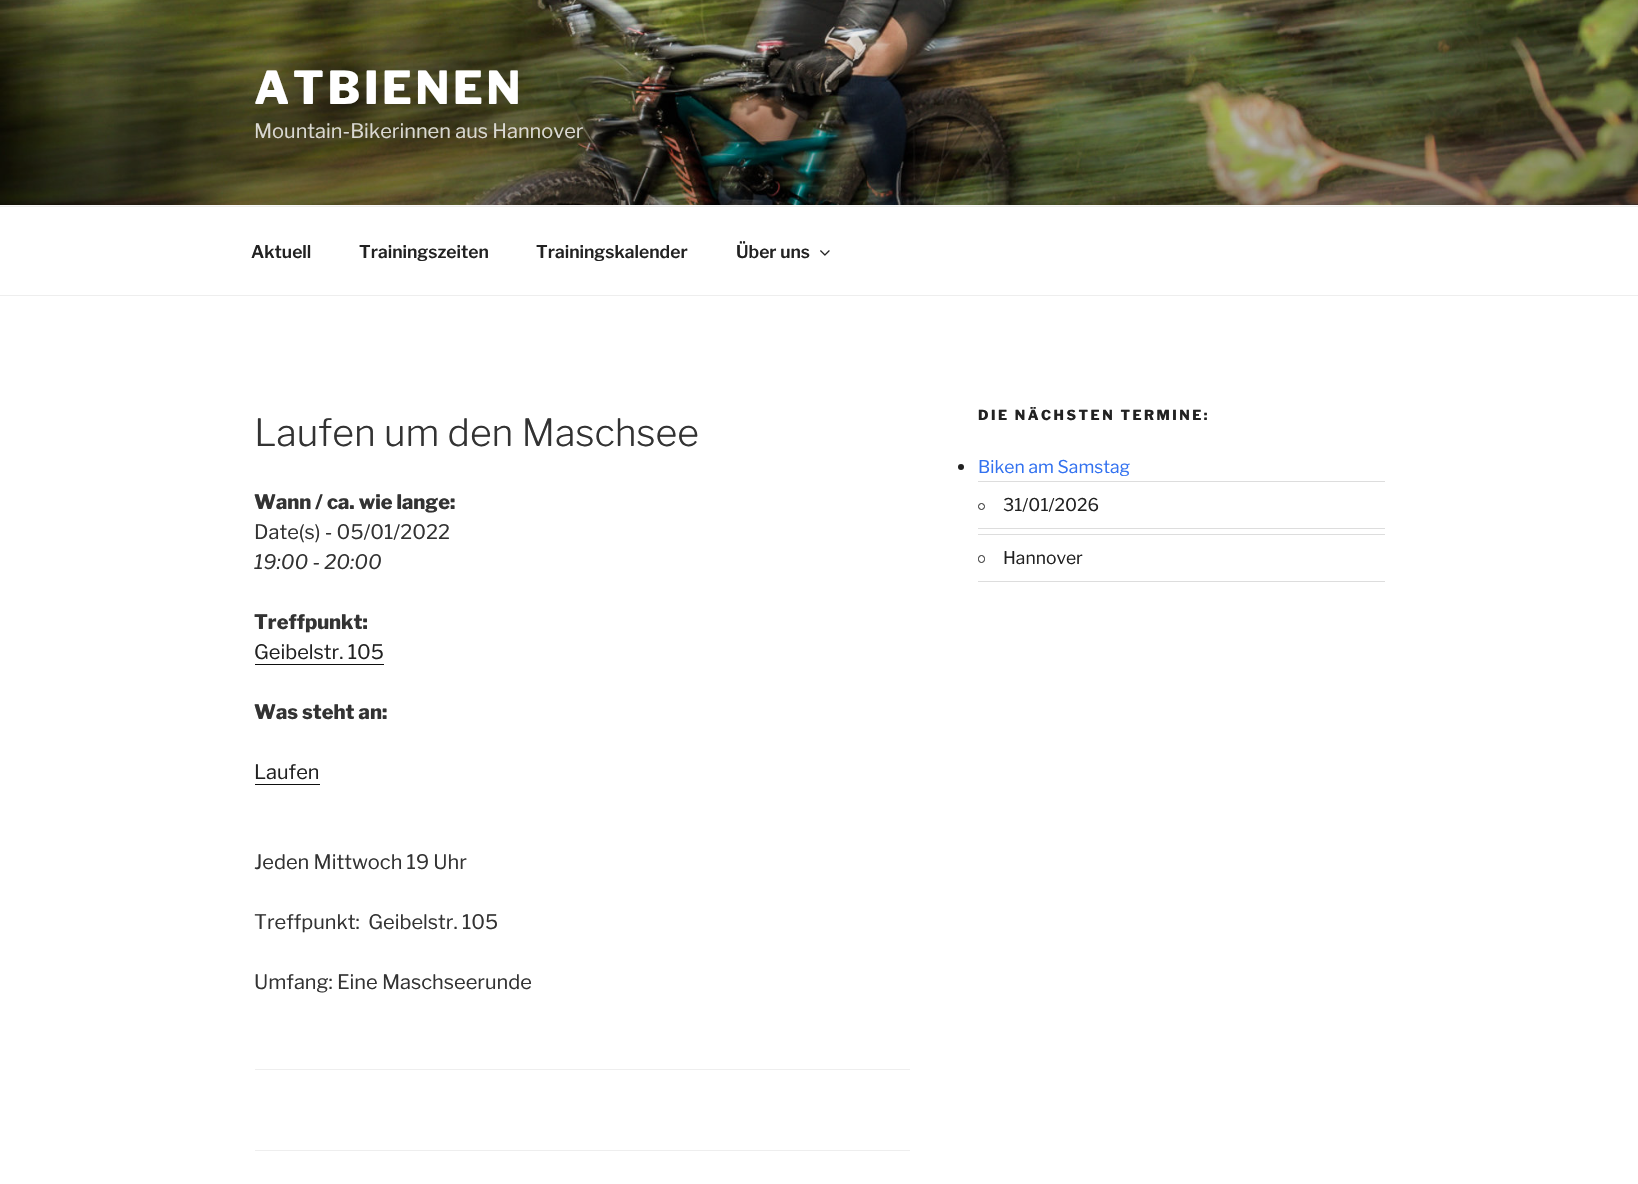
static SkFont makeFont(const char* family, int weight, float size, bool italic = false) {
  SkFontStyle style(weight, SkFontStyle::kNormal_Width,
    italic ? SkFontStyle::kItalic_Slant : SkFontStyle::kUpright_Slant);
  SkFont result(fontMgr->matchFamilyStyle(family, style), size);
  result.setSubpixel(true);
  return result;
}

static void text(SkCanvas* c, const char* s, float x, float y, const SkFont& font, SkColor color) {
  SkPaint ink(SkColor4f::FromColor(color));
  ink.setAntiAlias(true);
  c->drawString(s, x, y, font, ink);
}

static void spacedText(SkCanvas* c, const char* s, float x, float y, const SkFont& font, const SkPaint& ink, float letter, float word) {
  std::vector<SkGlyphID> glyphs(font.countText(s, strlen(s), SkTextEncoding::kUTF8));
  std::vector<float> xs(glyphs.size());
  font.textToGlyphs(s, strlen(s), SkTextEncoding::kUTF8, glyphs);
  font.getXPos(glyphs, xs, x);
  float extra = 0;
  for (size_t i = 0; i < glyphs.size(); i++) {
    xs[i] += extra;
    extra += letter + word * (glyphs[i] == font.unicharToGlyph(' '));
  }
  c->drawTextBlob(SkTextBlob::MakeFromPosHGlyphs(glyphs, xs, y, font), 0, 0, ink);
}

static void box(SkCanvas* c, float l, float t, float r, float b, SkColor color) {
  SkPaint ink(SkColor4f::FromColor(color));
  ink.setAntiAlias(true);
  c->drawRect(SkRect::MakeLTRB(l, t, r, b), ink);
}

static void picture(SkCanvas* c, const char* path, float l, float t, float r, float b) {
  auto image = SkImages::DeferredFromEncodedData(SkData::MakeFromFileName(path));
  c->drawImageRect(image, SkRect::MakeLTRB(l, t, r, b), SkSamplingOptions());
}

void draw(SkCanvas* c) {
  SkPaint paint;
  paint.setAntiAlias(true);
  c->clear(0xffffffff);
  box(c, 0, 205, 1638, 206, 0xfffafafa);
  picture(c, "img_01.png", 0, 0, 1638, 205);
  SkFont face1 = makeFont("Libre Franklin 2", 100, 45);
  paint.setColor(0xffffffff);
  spacedText(c, "ATBIENEN", 254, 104, face1, paint, 3.5f, 0);
  SkFont face2 = makeFont("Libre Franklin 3", 100, 20);
  text(c, "Mountain-Bikerinnen aus Hannover", 254, 138, face2, 0xffdad9d3);
  box(c, 0, 206, 1638, 207, 0xffeeeeee);
  box(c, 0, 295, 1638, 296, 0xffeeeeee);
  SkFont face3 = makeFont("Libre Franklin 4", 100, 17.5f);
  text(c, "Aktuell", 251, 258, face3, 0xff222222);
  text(c, "Trainingszeiten", 359, 258, face3, 0xff222222);
  text(c, "Trainingskalender", 536, 258, face3, 0xff222222);
  text(c, "Über uns", 736, 258, face3, 0xff222222);
  picture(c, "img_02.png", 820, 250, 830, 256);
  SkFont face4 = makeFont("Libre Franklin", 100, 37.5f);
  text(c, "Laufen um den Maschsee", 254, 446, face4, 0xff333333);
  SkFont face5 = makeFont("Libre Franklin 2", 100, 20);
  text(c, "Wann / ca. wie lange:", 254, 509, face5, 0xff333333);
  text(c, "Date(s) - 05/01/2022", 254, 539, face2, 0xff333333);
  SkFont face6 = makeFont("Libre Franklin", 100, 20, true);
  text(c, "19:00 - 20:00", 254, 569, face6, 0xff333333);
  text(c, "Treffpunkt:", 254, 629, face5, 0xff333333);
  text(c, "Geibelstr. 105", 254, 659, face2, 0xff222222);
  box(c, 255, 664, 384, 665, 0xff0f0f0f);
  text(c, "Was steht an:", 254, 719, face5, 0xff333333);
  text(c, "Laufen", 254, 779, face2, 0xff222222);
  box(c, 255, 784, 320, 785, 0xff0f0f0f);
  text(c, "Jeden Mittwoch 19 Uhr", 254, 869, face2, 0xff333333);
  text(c, "Treffpunkt:  Geibelstr. 105", 254, 929, face2, 0xff333333);
  text(c, "Umfang: Eine Maschseerunde", 254, 989, face2, 0xff333333);
  box(c, 255, 1069, 910, 1070, 0xffeeeeee);
  box(c, 255, 1150, 910, 1151, 0xffeeeeee);
  SkFont face7 = makeFont("Libre Franklin 2", 100, 13.75f);
  paint.setColor(0xff222222);
  spacedText(c, "DIE NÄCHSTEN TERMINE:", 978, 420, face7, paint, 2.5f, 0);
  paint.setColor(0xff212121);
  c->drawCircle(961, 467, 3, paint);
  SkFont face8 = makeFont("Libre Franklin 3", 100, 17.5f);
  text(c, "Biken am Samstag", 978, 473, face8, 0xff3372f0);
  box(c, 978, 481, 1385, 482, 0xffdddddd);
  box(c, 978, 528, 1385, 529, 0xffdddddd);
  paint.setStyle(SkPaint::kStroke_Style);
  paint.setStrokeWidth(1);
  c->drawCircle(981.5f, 506.5f, 3, paint);
  text(c, "31/01/2026", 1003, 511, face8, 0xff222222);
  box(c, 978, 534, 1385, 535, 0xffdddddd);
  box(c, 978, 581, 1385, 582, 0xffdddddd);
  c->drawRoundRect(SkRect::MakeLTRB(978.5f, 555.5f, 984.5f, 562.5f), 3, 3, paint);
  text(c, "Hannover", 1003, 564, face8, 0xff222222);
}
